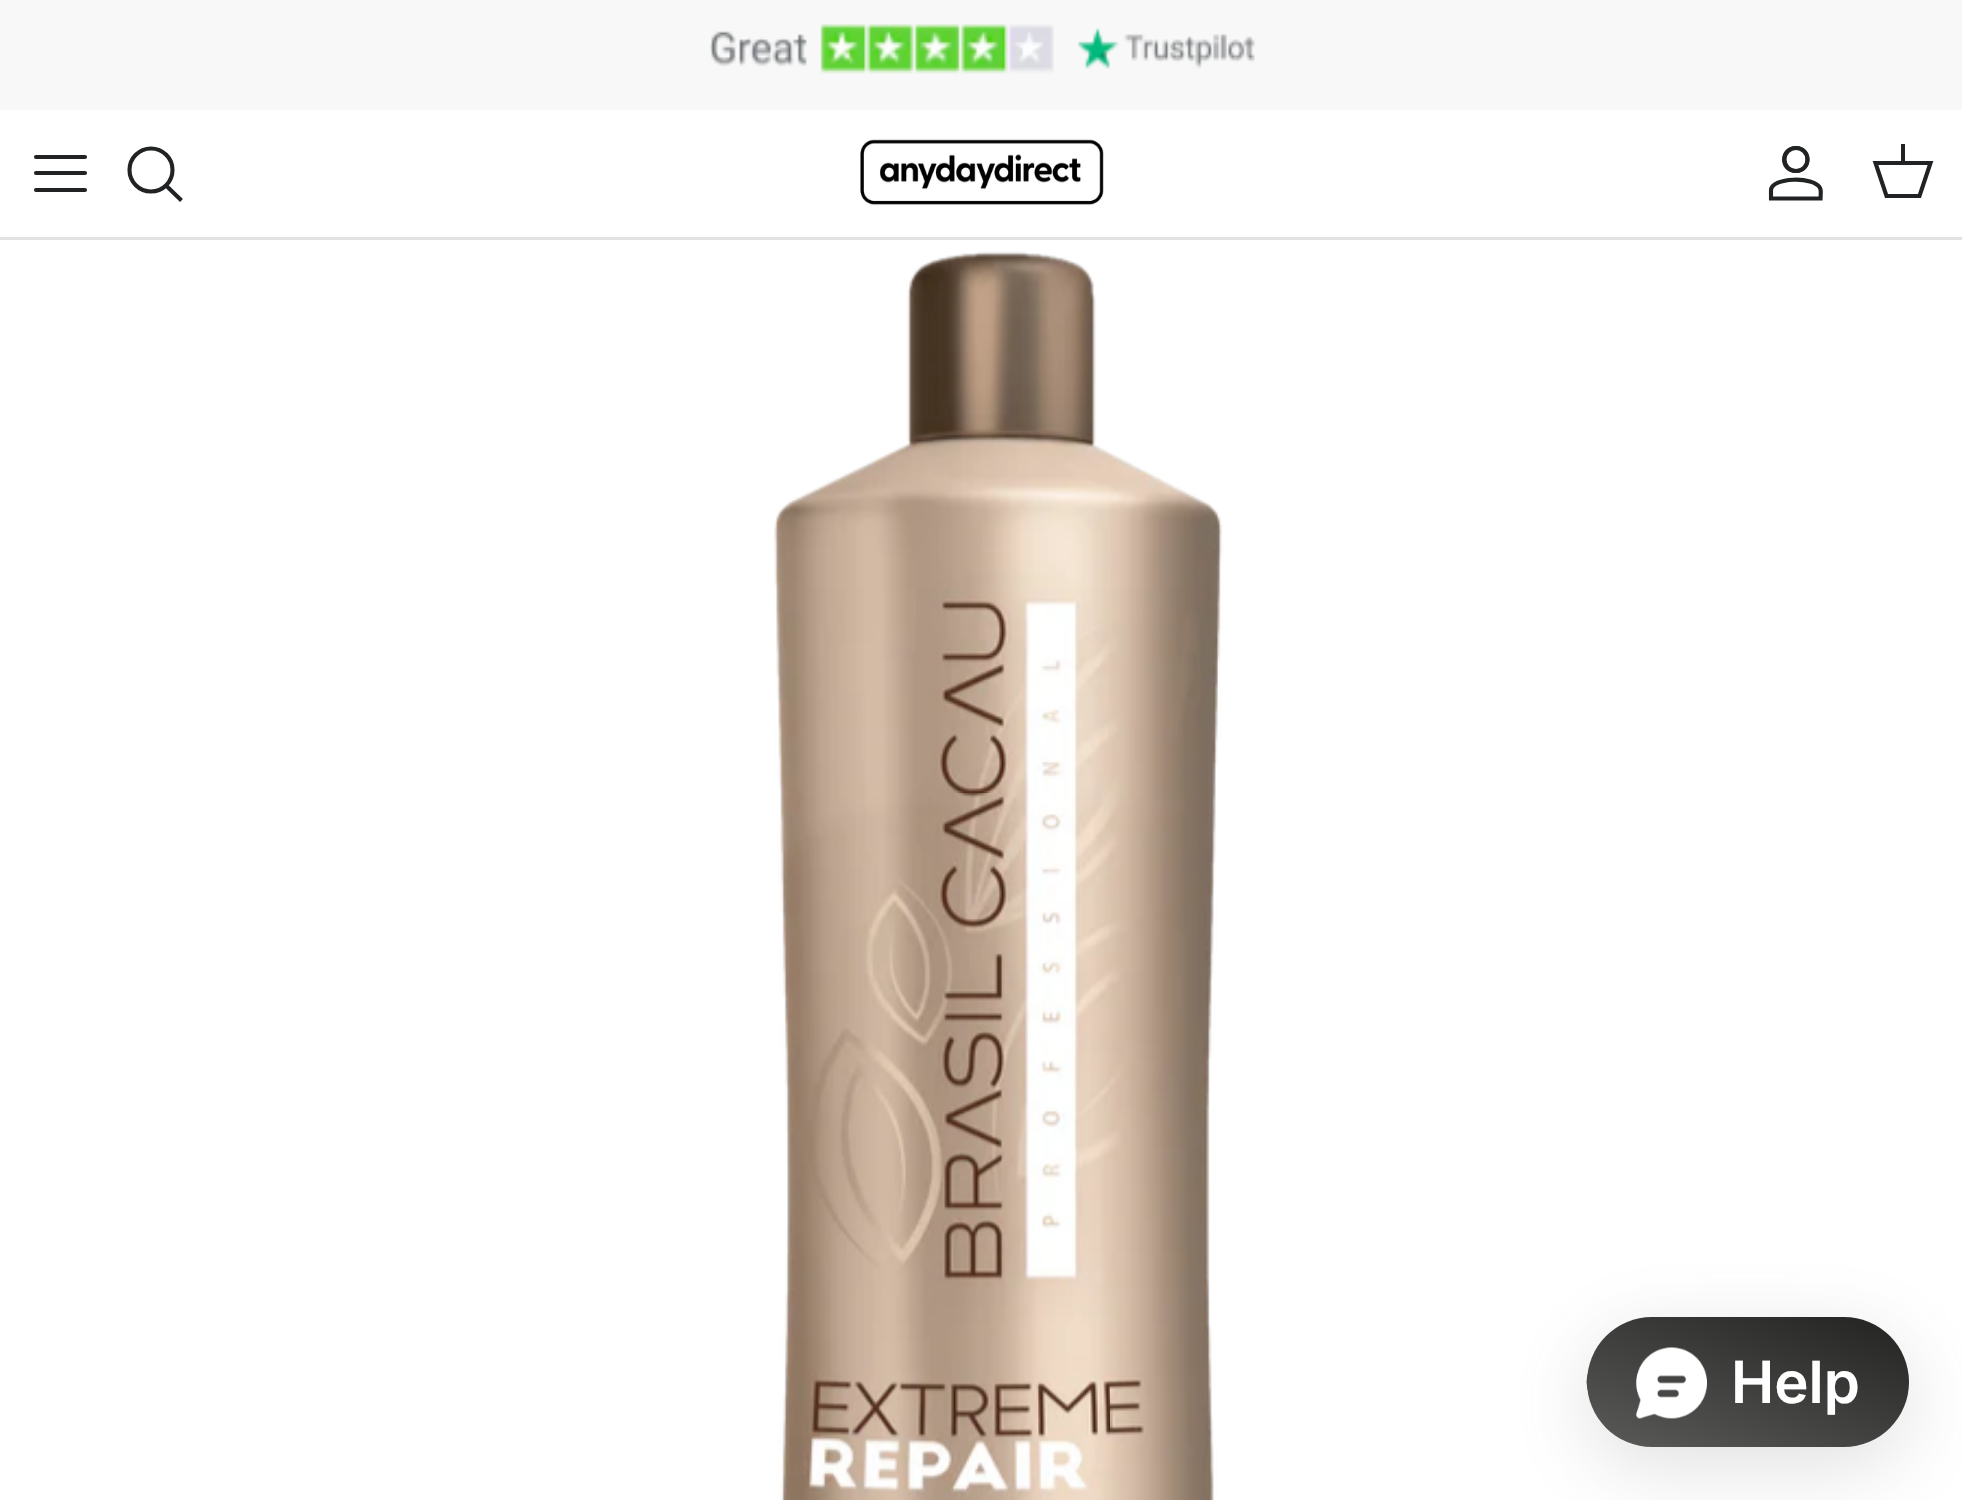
static SkFont makeFont(const char* family, int weight, float size, bool italic = false) {
  SkFontStyle style(weight, SkFontStyle::kNormal_Width,
    italic ? SkFontStyle::kItalic_Slant : SkFontStyle::kUpright_Slant);
  SkFont result(fontMgr->matchFamilyStyle(family, style), size);
  result.setSubpixel(true);
  return result;
}

static void text(SkCanvas* c, const char* s, float x, float y, const SkFont& font, SkColor color) {
  SkPaint ink(SkColor4f::FromColor(color));
  ink.setAntiAlias(true);
  c->drawString(s, x, y, font, ink);
}

static void box(SkCanvas* c, float l, float t, float r, float b, SkColor color) {
  SkPaint ink(SkColor4f::FromColor(color));
  ink.setAntiAlias(true);
  c->drawRect(SkRect::MakeLTRB(l, t, r, b), ink);
}

static void picture(SkCanvas* c, const char* path, float l, float t, float r, float b) {
  auto image = SkImages::DeferredFromEncodedData(SkData::MakeFromFileName(path));
  c->drawImageRect(image, SkRect::MakeLTRB(l, t, r, b), SkSamplingOptions());
}

void draw(SkCanvas* c) {
  SkPaint paint;
  paint.setAntiAlias(true);
  c->clear(0xffffffff);
  box(c, 0, 0, 1962, 110, 0xfff8f8f8);
  picture(c, "img_01.png", 709, 24, 1255, 74);
  box(c, 0, 237, 1962, 240, 0xffe2e2e2);
  paint.setStyle(SkPaint::kStroke_Style);
  paint.setStrokeWidth(4.1f);
  paint.setStrokeCap(SkPaint::kRound_Cap);
  paint.setStrokeJoin(SkPaint::kRound_Join);
  paint.setColor(0xff202223);
  c->drawPath(SkPathBuilder().moveTo(36, 173).lineTo(85, 173).moveTo(36, 157).lineTo(85, 157).moveTo(36, 190).lineTo(85, 190).detach(), paint);
  paint.setStrokeCap(SkPaint::kButt_Cap);
  paint.setStrokeJoin(SkPaint::kMiter_Join);
  c->drawCircle(151, 170, 21.5f, paint);
  paint.setStrokeCap(SkPaint::kSquare_Cap);
  c->drawPath(SkPathBuilder().moveTo(167.5f, 187).lineTo(180, 199).detach(), paint);
  picture(c, "img_02.png", 860, 138, 1105, 206);
  paint.setStyle(SkPaint::kFill_Style);
  c->drawPath(SkPathBuilder(SkPathFillType::kEvenOdd).moveTo(1796, 146).cubicTo(1814, 146, 1814, 173, 1796, 173).cubicTo(1777.5f, 173, 1777.5f, 146, 1796, 146).close().moveTo(1796, 149.5f).cubicTo(1783, 149.5f, 1782.5f, 169, 1796, 169.5f).cubicTo(1808.5f, 170, 1809, 149.5f, 1796, 149.5f).close().detach(), paint);
  paint.setStyle(SkPaint::kStroke_Style);
  paint.setStrokeCap(SkPaint::kButt_Cap);
  c->drawCircle(1796, 159.5f, 11.5f, paint);
  c->drawPath(SkPathBuilder().moveTo(1771, 190.5f).cubicTo(1771, 177, 1814.5f, 176, 1820, 188).cubicTo(1821.5f, 191, 1820.5f, 195.5f, 1820.5f, 198.5f).lineTo(1771, 198.5f).close().detach(), paint);
  c->drawPath(SkPathBuilder().moveTo(1875.5f, 163).lineTo(1930.5f, 163).lineTo(1919.5f, 196).lineTo(1886.5f, 196).close().detach(), paint);
  box(c, 1901, 144, 1905, 164, 0xff202223);
  picture(c, "img_03.png", 774, 251, 1223, 1500);
  paint.setStyle(SkPaint::kFill_Style);
  paint.setColor(0x3364646f);
  paint.setMaskFilter(SkMaskFilter::MakeBlur(kNormal_SkBlurStyle, 40));
  c->drawRoundRect(SkRect::MakeLTRB(1587, 1337, 1909, 1466), 64.5f, 64.5f, paint);
  paint.setMaskFilter(nullptr);
  {
    const SkColor colors[] = {0xff232322, 0xff5a5a59};
    const float stops[] = {0, 1};
    const SkPoint ends[] = {{1785, 1275}, {1711, 1489}};
    paint.setShader(SkGradientShader::MakeLinear(ends, colors, stops, 2, SkTileMode::kClamp));
    paint.setAlpha(255);
  }
  c->drawRoundRect(SkRect::MakeLTRB(1587, 1317, 1909, 1447), 65, 65, paint);
  c->drawOval(SkRect::MakeLTRB(1586.5f, 1317.5f, 1908.5f, 1446.5f), paint);
  picture(c, "img_04.png", 1636, 1347, 1707, 1419);
  SkFont face1 = makeFont("Inter", 600, 58);
  text(c, "Help", 1731, 1403, face1, 0xffffffff);
}
